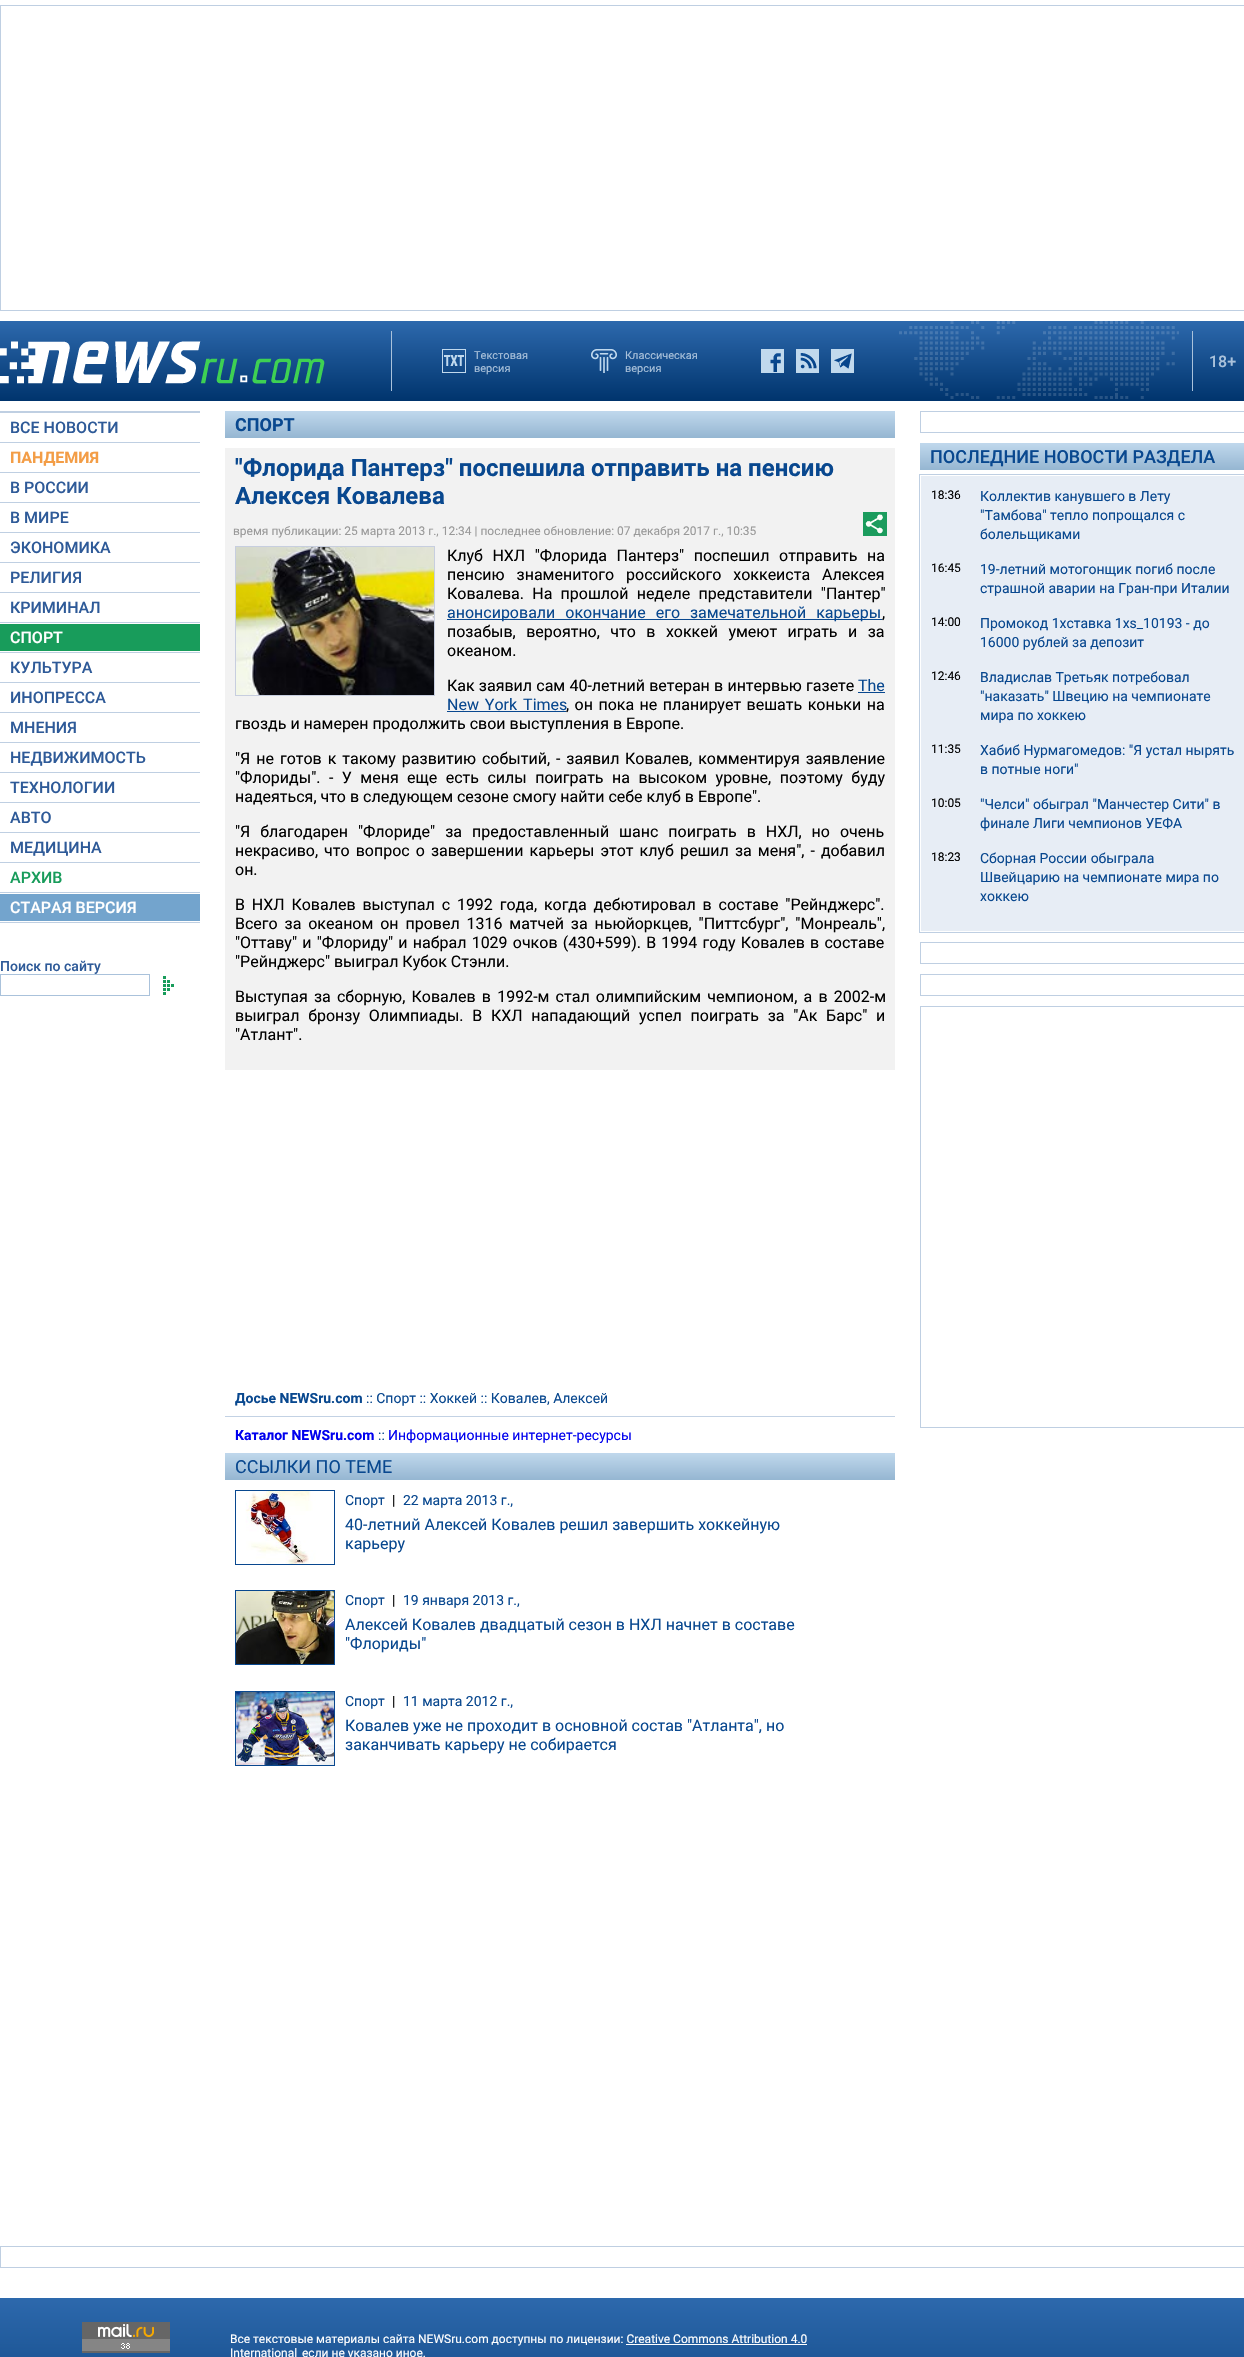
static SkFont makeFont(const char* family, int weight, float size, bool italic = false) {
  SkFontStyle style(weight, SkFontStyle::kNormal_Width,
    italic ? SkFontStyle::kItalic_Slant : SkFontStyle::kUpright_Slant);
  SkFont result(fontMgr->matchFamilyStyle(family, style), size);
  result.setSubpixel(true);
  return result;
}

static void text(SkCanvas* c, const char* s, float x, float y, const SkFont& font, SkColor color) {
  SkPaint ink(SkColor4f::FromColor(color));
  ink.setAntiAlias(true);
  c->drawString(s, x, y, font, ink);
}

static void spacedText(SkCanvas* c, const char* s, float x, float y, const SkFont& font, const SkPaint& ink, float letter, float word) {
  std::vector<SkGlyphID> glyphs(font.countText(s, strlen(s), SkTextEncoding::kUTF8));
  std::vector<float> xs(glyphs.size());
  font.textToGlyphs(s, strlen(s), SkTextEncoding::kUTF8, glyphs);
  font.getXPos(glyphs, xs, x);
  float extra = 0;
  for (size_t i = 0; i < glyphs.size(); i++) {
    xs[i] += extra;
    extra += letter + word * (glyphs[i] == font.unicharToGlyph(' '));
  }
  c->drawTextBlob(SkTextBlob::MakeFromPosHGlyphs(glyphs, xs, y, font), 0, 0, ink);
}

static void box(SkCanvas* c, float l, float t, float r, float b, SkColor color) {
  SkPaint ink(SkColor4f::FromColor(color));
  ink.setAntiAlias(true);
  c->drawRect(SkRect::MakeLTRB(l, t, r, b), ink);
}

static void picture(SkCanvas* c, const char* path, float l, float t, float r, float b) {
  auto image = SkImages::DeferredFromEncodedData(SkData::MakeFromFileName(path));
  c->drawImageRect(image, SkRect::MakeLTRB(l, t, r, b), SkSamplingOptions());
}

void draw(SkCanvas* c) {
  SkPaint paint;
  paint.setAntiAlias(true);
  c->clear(0xffffffff);
  paint.setStyle(SkPaint::kStroke_Style);
  paint.setStrokeWidth(1);
  paint.setColor(0xffbfcfe2);
  c->drawRect(SkRect::MakeLTRB(0.5f, 5.5f, 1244.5f, 310.5f), paint);
  paint.setStyle(SkPaint::kFill_Style);
  {
    const SkColor colors[] = {0xff2d69ad, 0xff00346d};
    const float stops[] = {0, 1};
    const SkPoint ends[] = {{625, 321}, {625, 401}};
    paint.setShader(SkGradientShader::MakeLinear(ends, colors, stops, 2, SkTileMode::kClamp));
    paint.setAlpha(255);
  }
  c->drawRect(SkRect::MakeLTRB(0, 321, 1244, 401), paint);
  picture(c, "img_01.png", 0, 341, 325, 384);
  box(c, 391, 331, 392, 391, 0xffaac2db);
  picture(c, "img_02.png", 442, 349, 466, 373);
  SkFont face1 = makeFont("Roboto", 400, 11);
  text(c, "Текстовая", 474, 359, face1, 0xffaac2db);
  text(c, "версия", 474, 372, face1, 0xffaac2db);
  picture(c, "img_03.png", 591, 349, 617, 373);
  text(c, "Классическая", 625, 359, face1, 0xffaac2db);
  text(c, "версия", 625, 372, face1, 0xffaac2db);
  picture(c, "img_04.png", 761, 349, 784, 373);
  picture(c, "img_05.png", 796, 349, 819, 373);
  box(c, 834, 353, 852, 369, 0xff08468d);
  picture(c, "img_06.png", 831, 349, 854, 373);
  picture(c, "img_07.png", 899, 321, 1179, 399);
  box(c, 1192, 331, 1193, 391, 0xffaac2db);
  SkFont face2 = makeFont("Roboto", 500, 16);
  text(c, "18+", 1209, 367, face2, 0xffaac2db);
  box(c, 0, 411, 200, 413, 0xffbfcfe2);
  box(c, 0, 442, 200, 443, 0xffbfcfe2);
  text(c, "ВСЕ НОВОСТИ", 10, 433, face2, 0xff2e5a98);
  box(c, 0, 472, 200, 473, 0xffbfcfe2);
  SkFont face3 = makeFont("Roboto", 700, 16);
  text(c, "ПАНДЕМИЯ", 10, 463, face3, 0xfff39d46);
  box(c, 0, 502, 200, 503, 0xffbfcfe2);
  text(c, "В РОССИИ", 10, 493, face2, 0xff2e5a98);
  box(c, 0, 532, 200, 533, 0xffbfcfe2);
  text(c, "В МИРЕ", 10, 523, face2, 0xff2e5a98);
  box(c, 0, 562, 200, 563, 0xffbfcfe2);
  text(c, "ЭКОНОМИКА", 10, 553, face2, 0xff2e5a98);
  box(c, 0, 592, 200, 593, 0xffbfcfe2);
  text(c, "РЕЛИГИЯ", 10, 583, face2, 0xff2e5a98);
  box(c, 0, 622, 200, 623, 0xffbfcfe2);
  text(c, "КРИМИНАЛ", 10, 613, face2, 0xff2e5a98);
  box(c, 0, 652, 200, 653, 0xffbfcfe2);
  box(c, 0, 624, 200, 651, 0xff189c5b);
  text(c, "СПОРТ", 10, 643, face2, 0xffffffff);
  box(c, 0, 682, 200, 683, 0xffbfcfe2);
  text(c, "КУЛЬТУРА", 10, 673, face2, 0xff2e5a98);
  box(c, 0, 712, 200, 713, 0xffbfcfe2);
  text(c, "ИНОПРЕССА", 10, 703, face2, 0xff2e5a98);
  box(c, 0, 742, 200, 743, 0xffbfcfe2);
  text(c, "МНЕНИЯ", 10, 733, face2, 0xff2e5a98);
  box(c, 0, 772, 200, 773, 0xffbfcfe2);
  text(c, "НЕДВИЖИМОСТЬ", 10, 763, face2, 0xff2e5a98);
  box(c, 0, 802, 200, 803, 0xffbfcfe2);
  text(c, "ТЕХНОЛОГИИ", 10, 793, face2, 0xff2e5a98);
  box(c, 0, 832, 200, 833, 0xffbfcfe2);
  text(c, "АВТО", 10, 823, face2, 0xff2e5a98);
  box(c, 0, 862, 200, 863, 0xffbfcfe2);
  text(c, "МЕДИЦИНА", 10, 853, face2, 0xff2e5a98);
  box(c, 0, 892, 200, 893, 0xffbfcfe2);
  text(c, "АРХИВ", 10, 883, face2, 0xff189c5b);
  box(c, 0, 922, 200, 923, 0xffbfcfe2);
  box(c, 0, 894, 200, 921, 0xff73a4cd);
  text(c, "СТАРАЯ ВЕРСИЯ", 10, 913, face2, 0xffffffff);
  SkFont face4 = makeFont("Roboto", 500, 14);
  text(c, "Поиск по сайту", 0, 971, face4, 0xff2e5a98);
  paint.setStyle(SkPaint::kStroke_Style);
  paint.setShader(nullptr);
  paint.setColor(0xffaac2db);
  c->drawRect(SkRect::MakeLTRB(0.5f, 974.5f, 149.5f, 995.5f), paint);
  picture(c, "img_08.png", 163, 976, 174, 995);
  paint.setStyle(SkPaint::kFill_Style);
  {
    const SkColor colors[] = {0xffc0d8ec, 0xff95b6d1};
    const float stops[] = {0, 1};
    const SkPoint ends[] = {{560, 411}, {560, 438}};
    paint.setShader(SkGradientShader::MakeLinear(ends, colors, stops, 2, SkTileMode::kClamp));
    paint.setAlpha(255);
  }
  c->drawRect(SkRect::MakeLTRB(225, 411, 895, 438), paint);
  SkFont face5 = makeFont("Roboto", 700, 18);
  text(c, "СПОРТ", 235, 431, face5, 0xff09488f);
  box(c, 225, 448, 895, 1070, 0xfff2f2f2);
  SkFont face6 = makeFont("Roboto", 700, 24);
  text(c, "\"Флорида Пантерз\" поспешила отправить на пенсию", 235, 476, face6, 0xff09488f);
  text(c, "Алексея Ковалева", 235, 504, face6, 0xff09488f);
  SkFont face7 = makeFont("Roboto", 400, 12);
  text(c, "время публикации: 25 марта 2013 г., 12:34 | последнее обновление: 07 декабря 2017 г., 10:35", 233, 535, face7, 0xff999999);
  picture(c, "img_09.png", 863, 512, 887, 536);
  paint.setStyle(SkPaint::kStroke_Style);
  paint.setShader(nullptr);
  paint.setColor(0xffc7cedf);
  c->drawRect(SkRect::MakeLTRB(235.5f, 546.5f, 434.5f, 695.5f), paint);
  picture(c, "img_10.png", 236, 547, 434, 695);
  SkFont face8 = makeFont("Roboto", 400, 16);
  paint.setStyle(SkPaint::kFill_Style);
  paint.setColor(0xff000000);
  spacedText(c, "Клуб НХЛ \"Флорида Пантерз\" поспешил отправить на", 447, 561, face8, paint, 0, 5.5f);
  spacedText(c, "пенсию знаменитого российского хоккеиста Алексея", 447, 580, face8, paint, 0, 8);
  spacedText(c, "Ковалева. На прошлой неделе представители \"Пантер\"", 447, 599, face8, paint, 0, 4.25f);
  box(c, 447, 619, 882, 620, 0xff09488f);
  paint.setColor(0xff09488f);
  spacedText(c, "анонсировали окончание его замечательной карьеры", 447, 618, face8, paint, 0, 6);
  text(c, ",", 882, 618, face8, 0xff000000);
  paint.setColor(0xff000000);
  spacedText(c, "позабыв, вероятно, что в хоккей умеют играть и за", 447, 637, face8, paint, 0, 6.5f);
  text(c, "океаном.", 447, 656, face8, 0xff000000);
  spacedText(c, "Как заявил сам 40-летний ветеран в интервью газете", 447, 691, face8, paint, 0, 0.25f);
  text(c, "The", 858, 691, face8, 0xff09488f);
  box(c, 858, 692, 885, 693, 0xff09488f);
  paint.setColor(0xff09488f);
  spacedText(c, "New York Times", 447, 710, face8, paint, 0, 2);
  box(c, 447, 711, 566, 712, 0xff09488f);
  paint.setColor(0xff000000);
  spacedText(c, ", он пока не планирует вешать коньки на", 566, 710, face8, paint, 0, 1.5f);
  text(c, "гвоздь и намерен продолжить свои выступления в Европе.", 235, 729, face8, 0xff000000);
  spacedText(c, "\"Я не готов к такому развитию событий, - заявил", 235, 764, face8, paint, 0, 2);
  spacedText(c, "Ковалев, комментируя заявление", 625, 764, face8, paint, 0, 2);
  spacedText(c, "\"Флориды\". - У меня еще есть силы поиграть на высоком уровне, поэтому буду", 235, 783, face8, paint, 0, 4.5f);
  text(c, "надеяться, что в следующем сезоне смогу найти себе клуб в Европе\".", 235, 802, face8, 0xff000000);
  spacedText(c, "\"Я благодарен \"Флориде\" за предоставленный шанс поиграть в НХЛ, но очень", 235, 837, face8, paint, 0, 6);
  spacedText(c, "некрасиво, что вопрос о завершении карьеры этот клуб решил за меня\", - добавил", 235, 856, face8, paint, 0, 2.1f);
  text(c, "он.", 235, 875, face8, 0xff000000);
  spacedText(c, "В НХЛ Ковалев выступал с 1992 года, когда дебютировал в составе \"Рейнджерс\".", 235, 910, face8, paint, 0, 2.9f);
  spacedText(c, "Всего за океаном он провел 1316 матчей за ньюйоркцев, \"Питтсбург\", \"Монреаль\",", 235, 929, face8, paint, 0, 2.9f);
  spacedText(c, "\"Оттаву\" и \"Флориду\" и набрал 1029 очков (430+599). В 1994 году Ковалев в составе", 235, 948, face8, paint, 0, 1.25f);
  text(c, "\"Рейнджерс\" выиграл Кубок Стэнли.", 235, 967, face8, 0xff000000);
  spacedText(c, "Выступая за сборную, Ковалев в 1992-м стал олимпийским чемпионом, а в 2002-м", 235, 1002, face8, paint, 0, 2.25f);
  spacedText(c, "выиграл бронзу Олимпиады. В КХЛ нападающий успел поиграть за \"Ак Барс\" и", 235, 1021, face8, paint, 0, 4.75f);
  text(c, "\"Атлант\".", 235, 1040, face8, 0xff000000);
  box(c, 225, 1416, 895, 1417, 0xffc3d2e4);
  SkFont face9 = makeFont("Roboto", 700, 14);
  text(c, "Досье NEWSru.com", 235, 1403, face9, 0xff09488f);
  SkFont face10 = makeFont("Roboto", 400, 14);
  text(c, ":: Спорт :: Хоккей :: Ковалев, Алексей", 366, 1403, face10, 0xff09488f);
  text(c, "Каталог NEWSru.com", 235, 1440, face9, 0xff0000ee);
  text(c, "::", 378, 1440, face10, 0xff09488f);
  text(c, "Информационные интернет-ресурсы", 388, 1440, face10, 0xff0000ee);
  {
    const SkColor colors[] = {0xffc0d8ec, 0xff95b6d1};
    const float stops[] = {0, 1};
    const SkPoint ends[] = {{560, 1453}, {560, 1480}};
    paint.setShader(SkGradientShader::MakeLinear(ends, colors, stops, 2, SkTileMode::kClamp));
    paint.setAlpha(255);
  }
  c->drawRect(SkRect::MakeLTRB(225, 1453, 895, 1480), paint);
  SkFont face11 = makeFont("Roboto", 400, 18);
  text(c, "ССЫЛКИ ПО ТЕМЕ", 235, 1473, face11, 0xff09488f);
  paint.setStyle(SkPaint::kStroke_Style);
  paint.setShader(nullptr);
  paint.setColor(0xff09488f);
  c->drawRect(SkRect::MakeLTRB(235.5f, 1490.5f, 334.5f, 1564.5f), paint);
  picture(c, "img_11.png", 236, 1491, 334, 1564);
  text(c, "Спорт", 345, 1505, face10, 0xff09488f);
  text(c, "|", 392, 1505, face10, 0xff000000);
  text(c, "22 марта 2013 г.,", 403, 1505, face10, 0xff09488f);
  text(c, "40-летний Алексей Ковалев решил завершить хоккейную", 345, 1530, face8, 0xff09488f);
  text(c, "карьеру", 345, 1549, face8, 0xff09488f);
  c->drawRect(SkRect::MakeLTRB(235.5f, 1590.5f, 334.5f, 1664.5f), paint);
  picture(c, "img_12.png", 236, 1591, 334, 1664);
  text(c, "Спорт", 345, 1605, face10, 0xff09488f);
  text(c, "|", 392, 1605, face10, 0xff000000);
  text(c, "19 января 2013 г.,", 403, 1605, face10, 0xff09488f);
  text(c, "Алексей Ковалев двадцатый сезон в НХЛ начнет в составе", 345, 1630, face8, 0xff09488f);
  text(c, "\"Флориды\"", 345, 1649, face8, 0xff09488f);
  c->drawRect(SkRect::MakeLTRB(235.5f, 1691.5f, 334.5f, 1765.5f), paint);
  picture(c, "img_13.png", 236, 1692, 334, 1765);
  text(c, "Спорт", 345, 1706, face10, 0xff09488f);
  text(c, "|", 392, 1706, face10, 0xff000000);
  text(c, "11 марта 2012 г.,", 403, 1706, face10, 0xff09488f);
  text(c, "Ковалев уже не проходит в основной состав \"Атланта\", но", 345, 1731, face8, 0xff09488f);
  text(c, "заканчивать карьеру не собирается", 345, 1750, face8, 0xff09488f);
  paint.setColor(0xffbfcfe2);
  c->drawRect(SkRect::MakeLTRB(920.5f, 411.5f, 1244.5f, 432.5f), paint);
  paint.setStyle(SkPaint::kFill_Style);
  {
    const SkColor colors[] = {0xffc0d8ec, 0xff95b6d1};
    const float stops[] = {0, 1};
    const SkPoint ends[] = {{1085, 443}, {1085, 470}};
    paint.setShader(SkGradientShader::MakeLinear(ends, colors, stops, 2, SkTileMode::kClamp));
    paint.setAlpha(255);
  }
  c->drawRect(SkRect::MakeLTRB(920, 443, 1244, 470), paint);
  SkFont face12 = makeFont("Roboto", 500, 18);
  text(c, "ПОСЛЕДНИЕ НОВОСТИ РАЗДЕЛА", 930, 463, face12, 0xff09488f);
  box(c, 921, 476, 1244, 931, 0xffe7edf5);
  paint.setStyle(SkPaint::kStroke_Style);
  paint.setShader(nullptr);
  paint.setColor(0xffbfcfe2);
  c->drawRect(SkRect::MakeLTRB(919.5f, 474.5f, 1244.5f, 932.5f), paint);
  text(c, "18:36", 931, 499, face7, 0xff000000);
  text(c, "Коллектив канувшего в Лету", 980, 501, face10, 0xff09488f);
  text(c, "\"Тамбова\" тепло попрощался с", 980, 520, face10, 0xff09488f);
  text(c, "болельщиками", 980, 539, face10, 0xff09488f);
  text(c, "16:45", 931, 572, face7, 0xff000000);
  text(c, "19-летний мотогонщик погиб после", 980, 574, face10, 0xff09488f);
  text(c, "страшной аварии на Гран-при Италии", 980, 593, face10, 0xff09488f);
  text(c, "14:00", 931, 626, face7, 0xff000000);
  text(c, "Промокод 1хставка 1xs_10193 - до", 980, 628, face10, 0xff09488f);
  text(c, "16000 рублей за депозит", 980, 647, face10, 0xff09488f);
  text(c, "12:46", 931, 680, face7, 0xff000000);
  text(c, "Владислав Третьяк потребовал", 980, 682, face10, 0xff09488f);
  text(c, "\"наказать\" Швецию на чемпионате", 980, 701, face10, 0xff09488f);
  text(c, "мира по хоккею", 980, 720, face10, 0xff09488f);
  text(c, "11:35", 931, 753, face7, 0xff000000);
  text(c, "Хабиб Нурмагомедов: \"Я устал нырять", 980, 755, face10, 0xff09488f);
  text(c, "в потные ноги\"", 980, 774, face10, 0xff09488f);
  text(c, "10:05", 931, 807, face7, 0xff000000);
  text(c, "\"Челси\" обыграл \"Манчестер Сити\" в", 980, 809, face10, 0xff09488f);
  text(c, "финале Лиги чемпионов УЕФА", 980, 828, face10, 0xff09488f);
  text(c, "18:23", 931, 861, face7, 0xff000000);
  text(c, "Сборная России обыграла", 980, 863, face10, 0xff09488f);
  text(c, "Швейцарию на чемпионате мира по", 980, 882, face10, 0xff09488f);
  text(c, "хоккею", 980, 901, face10, 0xff09488f);
  c->drawRect(SkRect::MakeLTRB(920.5f, 942.5f, 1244.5f, 963.5f), paint);
  c->drawRect(SkRect::MakeLTRB(920.5f, 974.5f, 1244.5f, 995.5f), paint);
  c->drawRect(SkRect::MakeLTRB(920.5f, 1006.5f, 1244.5f, 1427.5f), paint);
  c->drawRect(SkRect::MakeLTRB(0.5f, 2246.5f, 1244.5f, 2267.5f), paint);
  paint.setStyle(SkPaint::kFill_Style);
  {
    const SkColor colors[] = {0xff2d69ad, 0xff00346d};
    const float stops[] = {0, 1};
    const SkPoint ends[] = {{625, 2298}, {625, 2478}};
    paint.setShader(SkGradientShader::MakeLinear(ends, colors, stops, 2, SkTileMode::kClamp));
    paint.setAlpha(255);
  }
  c->drawRect(SkRect::MakeLTRB(0, 2298, 1244, 2357), paint);
  picture(c, "img_14.png", 82, 2322, 170, 2353);
  text(c, "Все текстовые материалы сайта NEWSru.com доступны по лицензии: Creative Commons Attribution 4.0", 230, 2343, face7, 0xffffffff);
  text(c, "International", 230, 2357, face7, 0xffffffff);
  box(c, 626, 2344, 807, 2345, 0xffffffff);
  text(c, "если не указано иное.", 302, 2357, face7, 0xffffffff);
}
